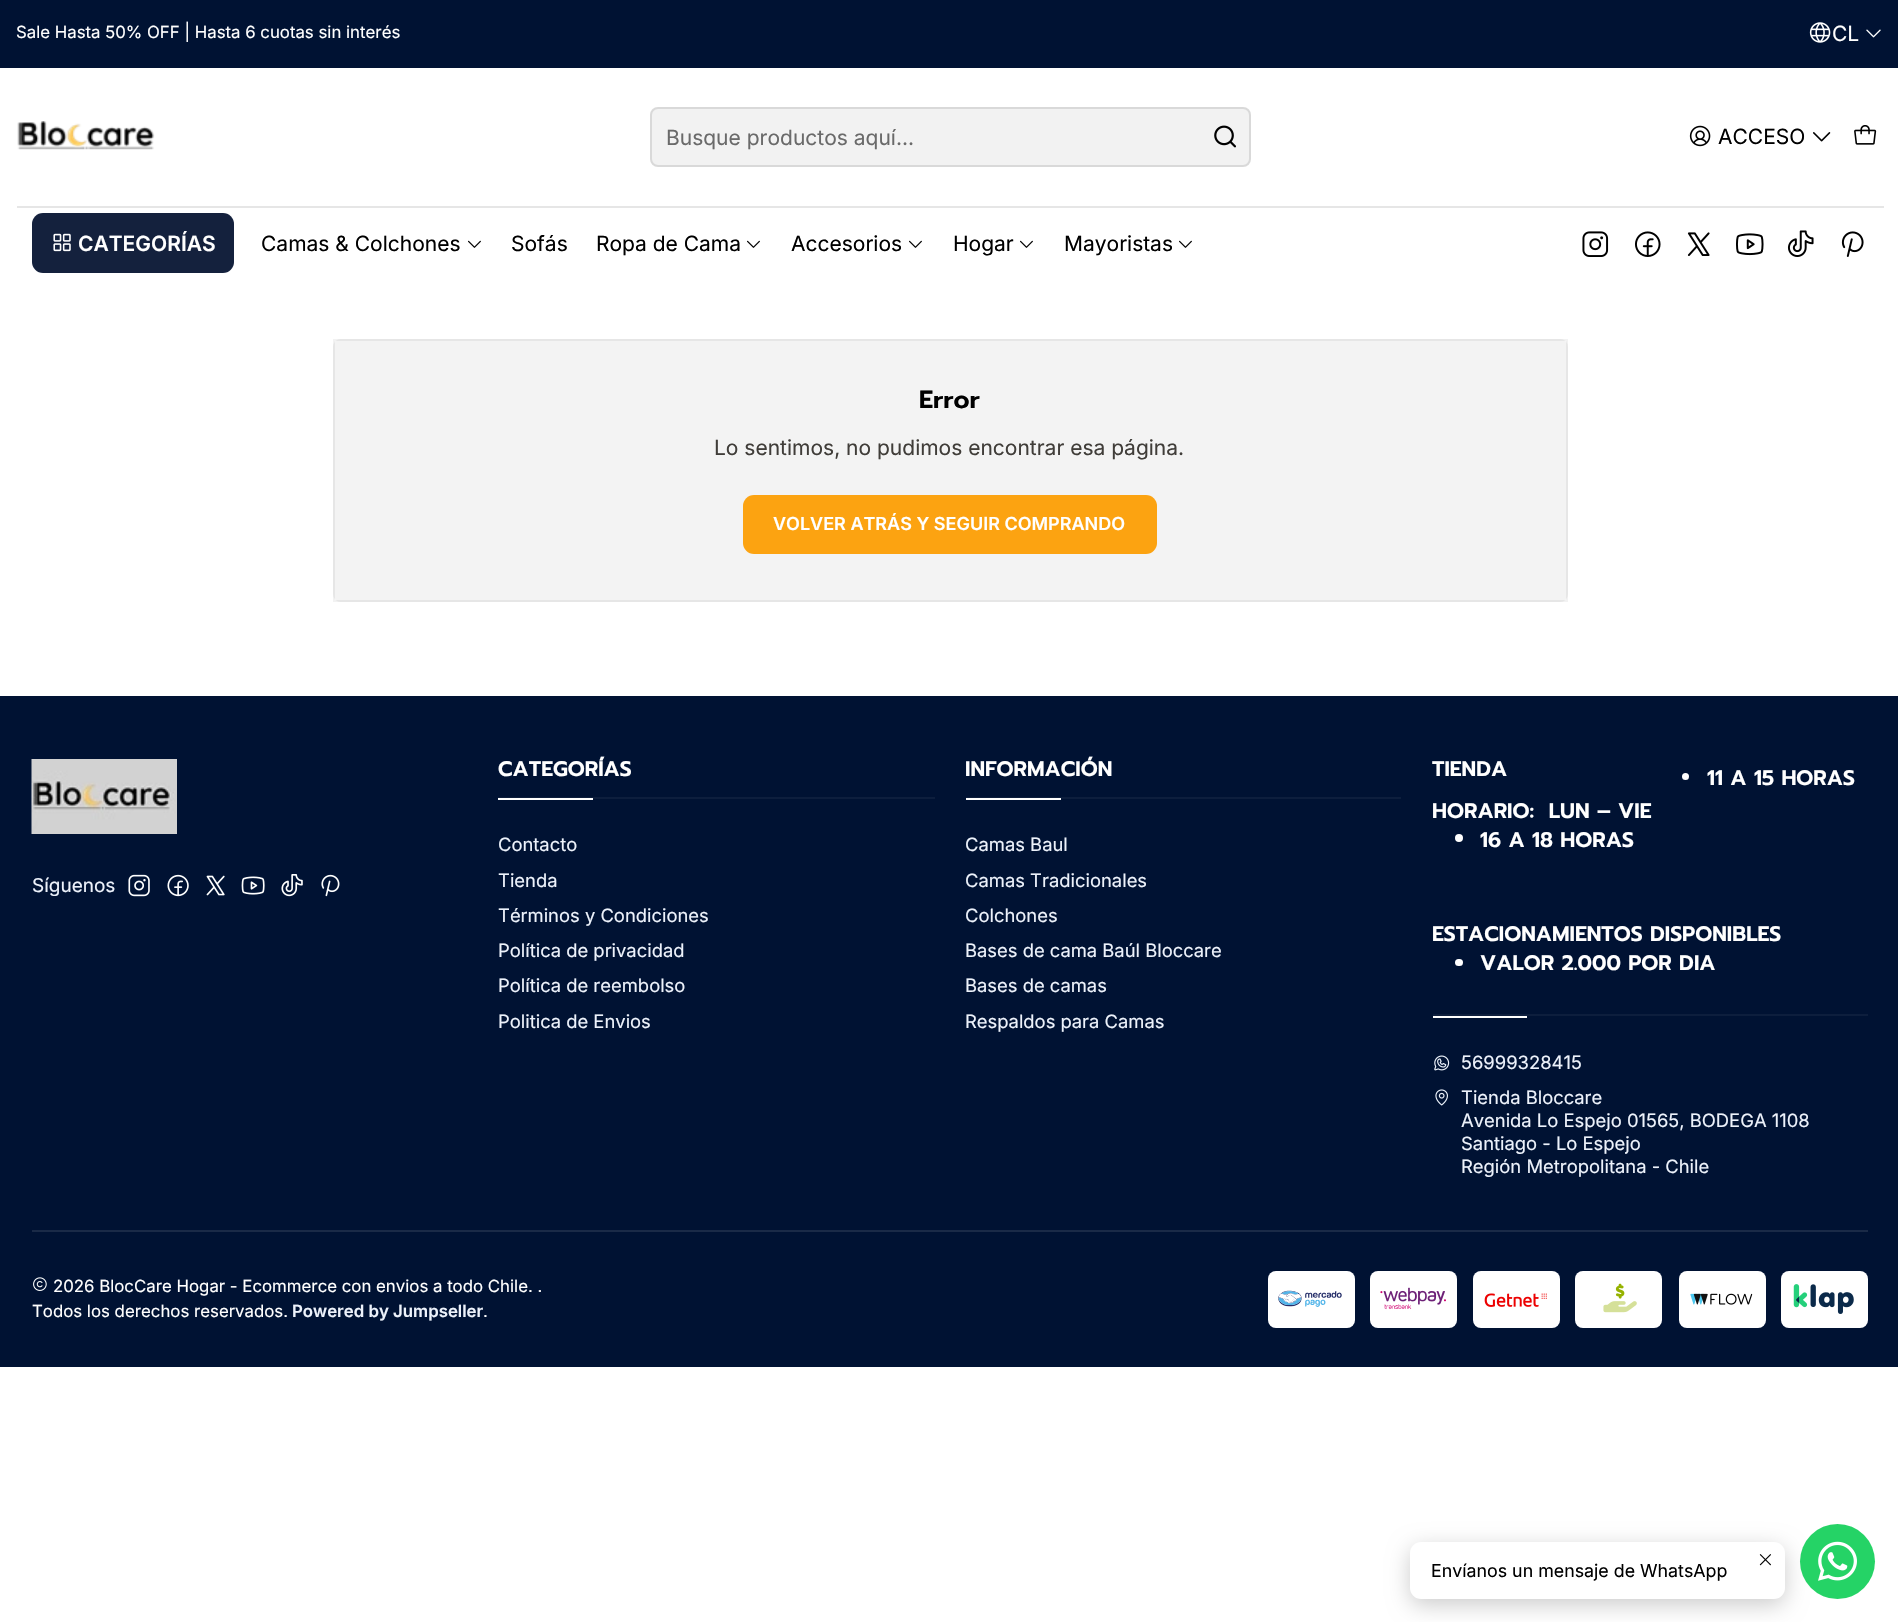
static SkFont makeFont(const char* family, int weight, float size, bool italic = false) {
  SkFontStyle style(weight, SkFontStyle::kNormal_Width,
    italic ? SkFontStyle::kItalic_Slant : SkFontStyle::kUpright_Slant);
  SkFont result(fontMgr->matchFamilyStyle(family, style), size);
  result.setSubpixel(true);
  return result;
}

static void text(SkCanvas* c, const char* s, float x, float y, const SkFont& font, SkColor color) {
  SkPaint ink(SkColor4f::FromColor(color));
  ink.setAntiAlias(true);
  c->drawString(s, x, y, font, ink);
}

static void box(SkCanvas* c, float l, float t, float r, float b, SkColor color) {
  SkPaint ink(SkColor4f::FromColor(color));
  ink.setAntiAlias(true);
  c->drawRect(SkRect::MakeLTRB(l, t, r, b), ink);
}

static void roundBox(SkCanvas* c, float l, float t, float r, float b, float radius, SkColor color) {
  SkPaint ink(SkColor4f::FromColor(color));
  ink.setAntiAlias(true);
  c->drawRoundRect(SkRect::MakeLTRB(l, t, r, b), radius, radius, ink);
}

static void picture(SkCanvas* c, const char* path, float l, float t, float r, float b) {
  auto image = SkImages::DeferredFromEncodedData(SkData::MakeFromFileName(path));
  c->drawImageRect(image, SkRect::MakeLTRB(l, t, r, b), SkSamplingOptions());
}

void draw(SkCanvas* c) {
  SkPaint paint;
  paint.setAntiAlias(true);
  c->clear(0xffffffff);
  box(c, 0, 0, 1898, 68, 0xff001233);
  SkFont face1 = makeFont("Inter", 400, 16.8f);
  text(c, "Sale Hasta 50% OFF | Hasta 6 cuotas sin interés", 16, 38, face1, 0xffffffff);
  picture(c, "img_01.png", 1809, 22, 1831, 43);
  SkFont face2 = makeFont("Inter", 400, 21);
  text(c, "CL", 1832, 41, face2, 0xffffffff);
  picture(c, "img_02.png", 1866, 29, 1881, 38);
  picture(c, "img_03.png", 17, 121, 155, 150);
  roundBox(c, 650, 107, 1251, 167, 8, 0xfff2f2f2);
  paint.setStyle(SkPaint::kStroke_Style);
  paint.setStrokeWidth(2);
  paint.setColor(0x1a000000);
  c->drawRoundRect(SkRect::MakeLTRB(651, 108, 1250, 166), 7, 7, paint);
  text(c, "Busque productos aquí...", 666, 145, face2, 0xff6a6a6a);
  picture(c, "img_04.png", 1214, 125, 1236, 148);
  picture(c, "img_05.png", 1689, 125, 1711, 147);
  text(c, "ACCESO", 1718, 144, face2, 0xff000000);
  picture(c, "img_06.png", 1813, 132, 1831, 142);
  picture(c, "img_07.png", 1854, 125, 1877, 145);
  box(c, 17, 206, 1884, 208, 0xffe6e6e6);
  roundBox(c, 32, 213, 234, 273, 11, 0xff14213d);
  picture(c, "img_08.png", 53, 233, 71, 252);
  SkFont face3 = makeFont("Inter", 600, 21);
  text(c, "CATEGORÍAS", 78, 251, face3, 0xffffffff);
  text(c, "Camas & Colchones", 261, 251, face2, 0xff000000);
  picture(c, "img_09.png", 468, 240, 481, 248);
  text(c, "Sofás", 511, 251, face2, 0xff000000);
  text(c, "Ropa de Cama", 596, 251, face2, 0xff000000);
  picture(c, "img_09.png", 747, 240, 760, 248);
  text(c, "Accesorios", 791, 251, face2, 0xff000000);
  picture(c, "img_09.png", 909, 240, 922, 248);
  text(c, "Hogar", 953, 251, face2, 0xff000000);
  picture(c, "img_09.png", 1020, 240, 1033, 248);
  text(c, "Mayoristas", 1064, 251, face2, 0xff000000);
  picture(c, "img_09.png", 1179, 240, 1192, 248);
  picture(c, "img_10.png", 1582, 231, 1609, 257);
  picture(c, "img_11.png", 1635, 231, 1661, 257);
  picture(c, "img_12.png", 1687, 232, 1710, 256);
  picture(c, "img_13.png", 1736, 233, 1764, 256);
  picture(c, "img_14.png", 1787, 230, 1814, 257);
  picture(c, "img_15.png", 1841, 231, 1864, 257);
  roundBox(c, 333, 339, 1568, 602, 8, 0xfff3f3f3);
  paint.setColor(0x0d000000);
  c->drawRect(SkRect::MakeLTRB(334, 340, 1567, 601), paint);
  SkFont face4 = makeFont("Prompt", 600, 25);
  text(c, "Error", 919, 408, face4, 0xff000000);
  text(c, "Lo sentimos, no pudimos encontrar esa página.", 714, 455, face2, 0xff403d39);
  roundBox(c, 743, 495, 1157, 554, 11, 0xfffca311);
  SkFont face5 = makeFont("Inter", 600, 18);
  text(c, "VOLVER ATRÁS Y SEGUIR COMPRANDO", 773, 530, face5, 0xffffffff);
  box(c, 0, 696, 1898, 1367, 0xff001233);
  picture(c, "img_16.png", 31, 759, 177, 834);
  SkFont face6 = makeFont("Inter", 400, 19);
  text(c, "Síguenos", 32, 892, face6, 0xffedf2fb);
  picture(c, "img_17.png", 128, 874, 150, 897);
  picture(c, "img_18.png", 167, 874, 189, 897);
  picture(c, "img_19.png", 206, 875, 225, 896);
  picture(c, "img_20.png", 241, 876, 265, 895);
  picture(c, "img_21.png", 281, 874, 303, 897);
  picture(c, "img_22.png", 321, 874, 340, 897);
  box(c, 498, 797, 935, 799, 0xff0d1e3d);
  SkFont face7 = makeFont("Prompt", 600, 21);
  text(c, "CATEGORÍAS", 498, 776, face7, 0xffffffff);
  box(c, 498, 798, 593, 800, 0xffffffff);
  SkFont face8 = makeFont("Inter", 400, 18.4f);
  text(c, "Contacto", 498, 851, face8, 0xffedf2fb);
  text(c, "Tienda", 498, 887, face8, 0xffedf2fb);
  text(c, "Términos y Condiciones", 498, 922, face8, 0xffedf2fb);
  text(c, "Política de privacidad", 498, 957, face8, 0xffedf2fb);
  text(c, "Política de reembolso", 498, 992, face8, 0xffedf2fb);
  text(c, "Politica de Envios", 498, 1028, face8, 0xffedf2fb);
  box(c, 966, 797, 1401, 799, 0xff0d1e3d);
  text(c, "INFORMACIÓN", 965, 776, face7, 0xffffffff);
  box(c, 966, 798, 1061, 800, 0xffffffff);
  text(c, "Camas Baul", 965, 851, face8, 0xffedf2fb);
  text(c, "Camas Tradicionales", 965, 887, face8, 0xffedf2fb);
  text(c, "Colchones", 965, 922, face8, 0xffedf2fb);
  text(c, "Bases de cama Baúl Bloccare", 965, 957, face8, 0xffedf2fb);
  text(c, "Bases de camas", 965, 992, face8, 0xffedf2fb);
  text(c, "Respaldos para Camas", 965, 1028, face8, 0xffedf2fb);
  box(c, 1433, 1014, 1868, 1016, 0xff0d1e3d);
  text(c, "TIENDA", 1432, 776, face7, 0xffffffff);
  paint.setStyle(SkPaint::kFill_Style);
  paint.setColor(0xffffffff);
  c->drawCircle(1685.5f, 776.5f, 3.5f, paint);
  text(c, "11 A 15 HORAS", 1707, 785, face7, 0xffffffff);
  text(c, "HORARIO:  LUN – VIE", 1432, 818, face7, 0xffffffff);
  c->drawCircle(1459, 838, 4, paint);
  text(c, "16 A 18 HORAS", 1480, 847, face7, 0xffffffff);
  text(c, "ESTACIONAMIENTOS DISPONIBLES", 1432, 941, face7, 0xffffffff);
  roundBox(c, 1455, 959, 1463, 966, 3.5f, 0xffffffff);
  text(c, "VALOR 2.000 POR DIA", 1480, 970, face7, 0xffffffff);
  box(c, 1433, 1016, 1527, 1018, 0xffffffff);
  picture(c, "img_23.png", 1434, 1055, 1450, 1071);
  text(c, "56999328415", 1461, 1069, face8, 0xffedf2fb);
  picture(c, "img_24.png", 1435, 1089, 1448, 1106);
  text(c, "Tienda Bloccare", 1461, 1104, face8, 0xffedf2fb);
  text(c, "Avenida Lo Espejo 01565, BODEGA 1108", 1461, 1127, face8, 0xffedf2fb);
  text(c, "Santiago - Lo Espejo", 1461, 1150, face8, 0xffedf2fb);
  text(c, "Región Metropolitana - Chile", 1461, 1173, face8, 0xffedf2fb);
  box(c, 32, 1230, 1868, 1232, 0xff1a2a47);
  picture(c, "img_25.png", 33, 1277, 47, 1291);
  text(c, "2026 BlocCare Hogar - Ecommerce con envios a todo Chile. .", 53, 1292, face1, 0xffffffff);
  text(c, "Todos los derechos reservados.", 32, 1317, face1, 0xffffffff);
  SkFont face9 = makeFont("Inter", 600, 16.8f);
  text(c, "Powered by Jumpseller", 292, 1317, face9, 0xffedf2fb);
  text(c, ".", 483, 1317, face1, 0xffffffff);
  roundBox(c, 1268, 1271, 1355, 1328, 8, 0xffffffff);
  paint.setStyle(SkPaint::kStroke_Style);
  paint.setColor(0x1affffff);
  c->drawRoundRect(SkRect::MakeLTRB(1269, 1272, 1354, 1327), 7, 7, paint);
  picture(c, "img_26.png", 1278, 1290, 1342, 1307);
  roundBox(c, 1370, 1271, 1457, 1328, 8, 0xffffffff);
  c->drawRoundRect(SkRect::MakeLTRB(1371, 1272, 1456, 1327), 7, 7, paint);
  picture(c, "img_27.png", 1380, 1287, 1446, 1310);
  roundBox(c, 1473, 1271, 1560, 1328, 8, 0xffffffff);
  c->drawRoundRect(SkRect::MakeLTRB(1474, 1272, 1559, 1327), 7, 7, paint);
  picture(c, "img_28.png", 1484, 1293, 1547, 1307);
  roundBox(c, 1575, 1271, 1662, 1328, 8, 0xffffffff);
  c->drawRoundRect(SkRect::MakeLTRB(1576, 1272, 1661, 1327), 7, 7, paint);
  picture(c, "img_29.png", 1603, 1283, 1637, 1313);
  roundBox(c, 1679, 1271, 1766, 1328, 8, 0xffffffff);
  c->drawRoundRect(SkRect::MakeLTRB(1680, 1272, 1765, 1327), 7, 7, paint);
  picture(c, "img_30.png", 1690, 1293, 1753, 1305);
  roundBox(c, 1781, 1271, 1868, 1328, 8, 0xffffffff);
  c->drawRoundRect(SkRect::MakeLTRB(1782, 1272, 1867, 1327), 7, 7, paint);
  picture(c, "img_31.png", 1793, 1284, 1854, 1314);
  paint.setStyle(SkPaint::kFill_Style);
  paint.setColor(0x33000000);
  paint.setMaskFilter(SkMaskFilter::MakeBlur(kNormal_SkBlurStyle, 11));
  c->drawRoundRect(SkRect::MakeLTRB(1410, 1548, 1785, 1605), 11, 11, paint);
  paint.setMaskFilter(nullptr);
  roundBox(c, 1410, 1542, 1785, 1599, 11, 0xffffffff);
  picture(c, "img_32.png", 1759, 1554, 1771, 1566);
  SkFont face10 = makeFont("Inter", 400, 17.8f);
  text(c, "Envíanos un mensaje de WhatsApp", 1431, 1577, face10, 0xff000000);
  paint.setColor(0xff25d366);
  c->drawCircle(1837.5f, 1561.5f, 37.5f, paint);
  picture(c, "img_33.png", 1818, 1541, 1857, 1581);
}
